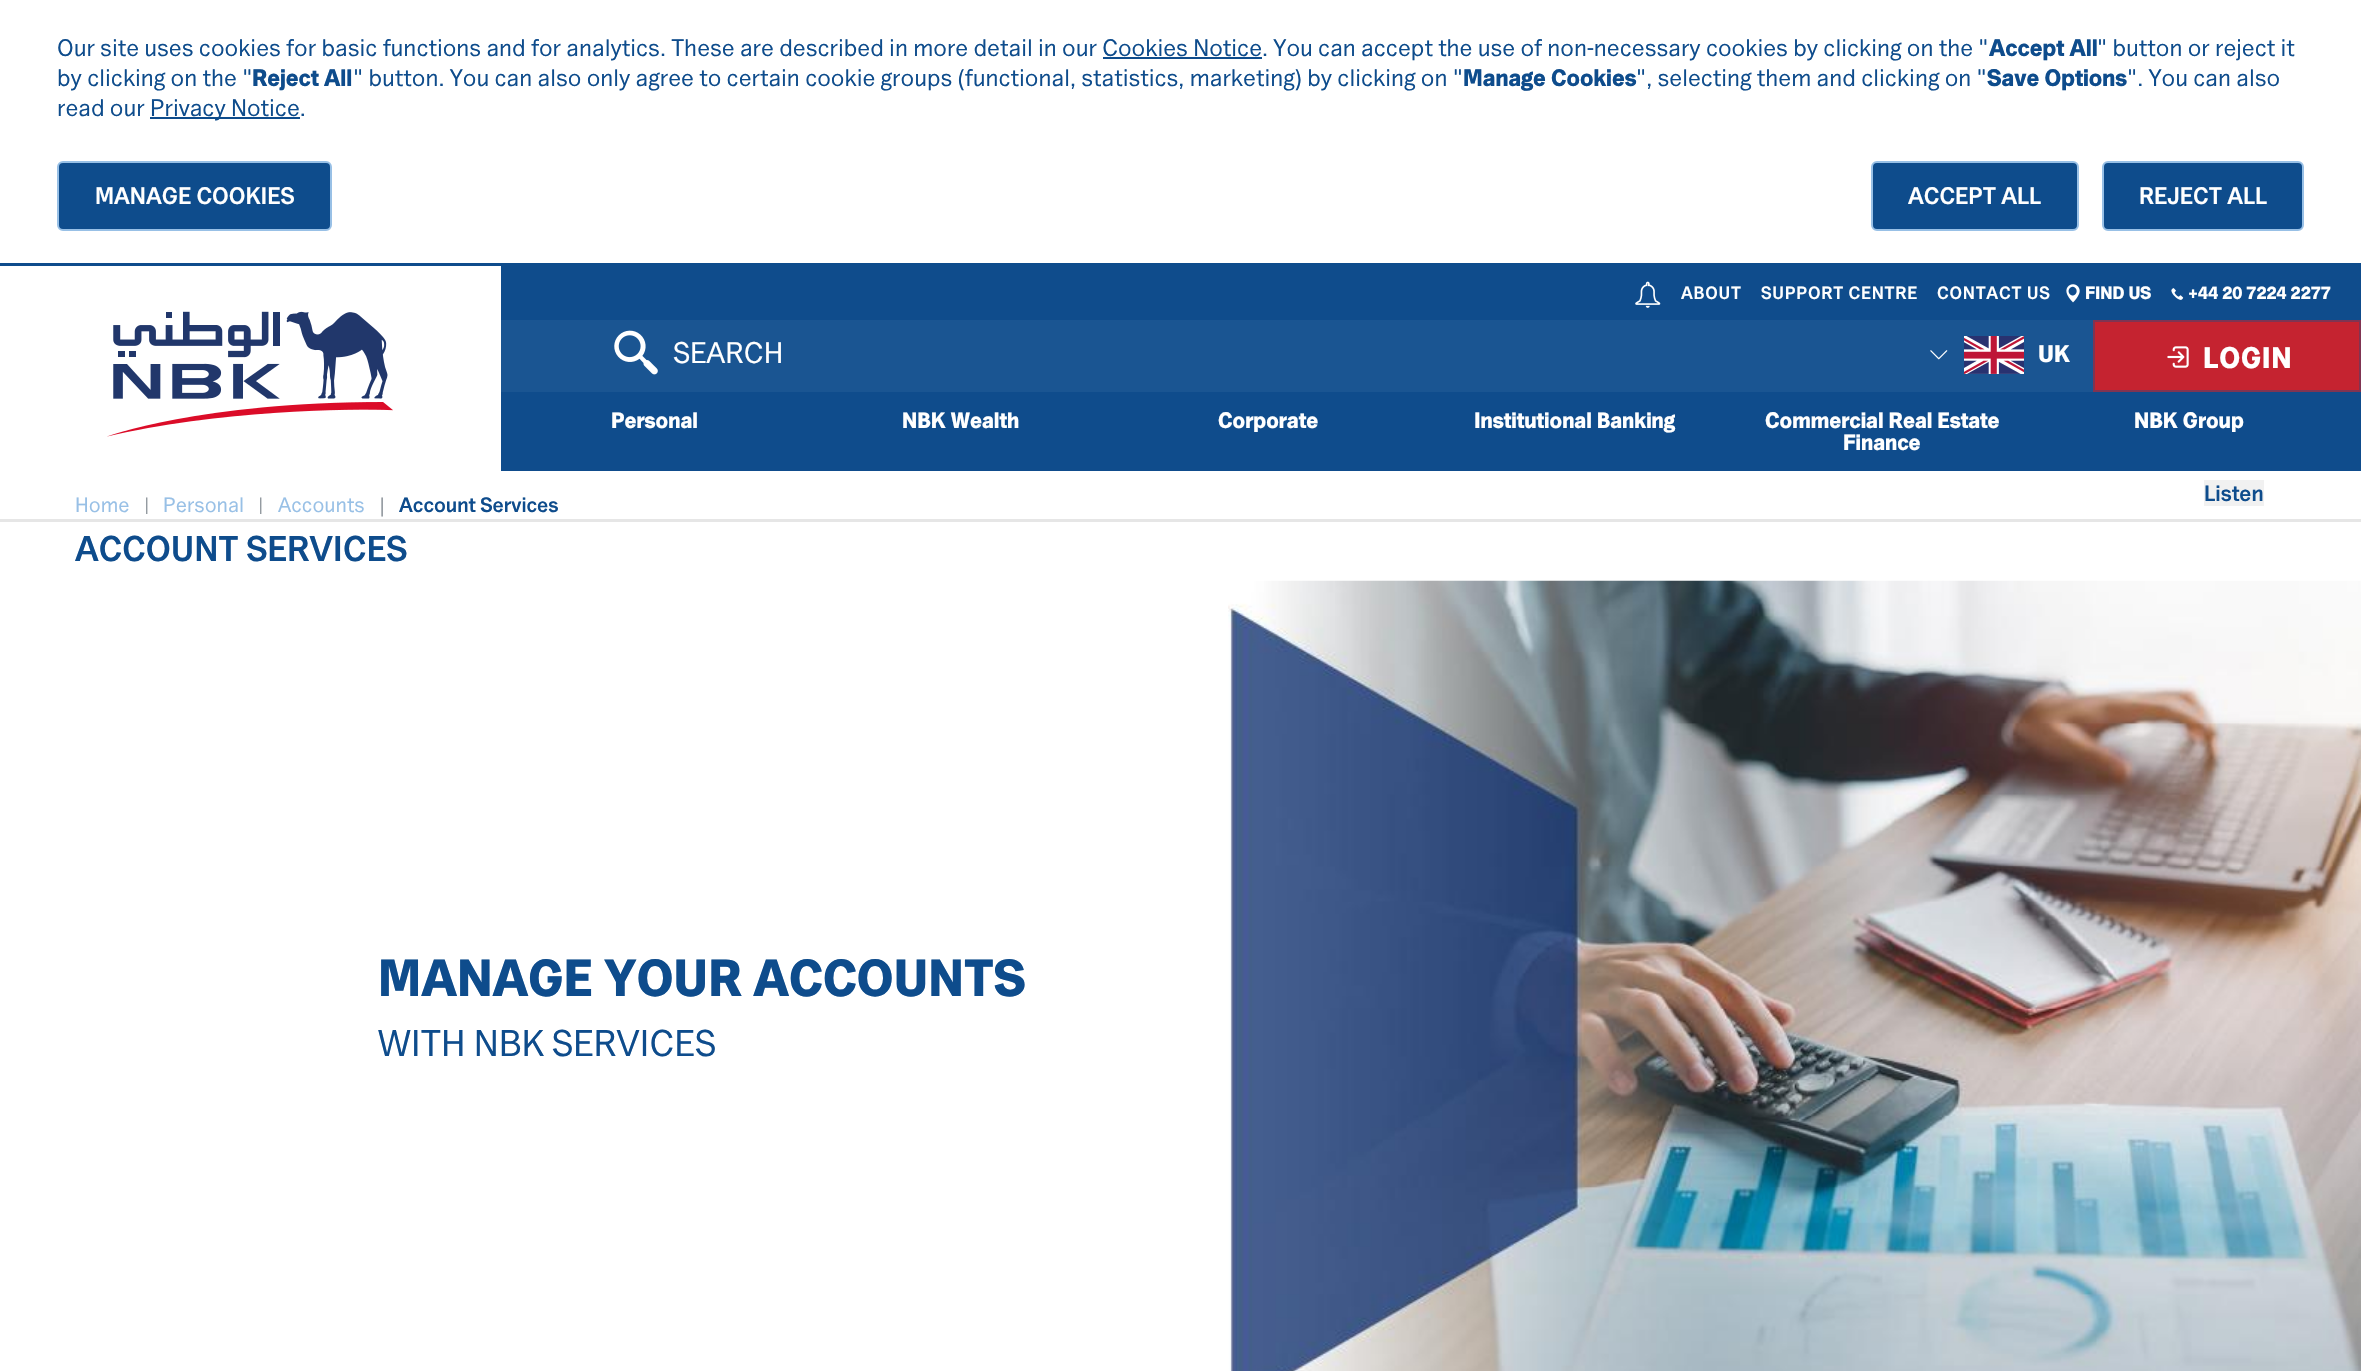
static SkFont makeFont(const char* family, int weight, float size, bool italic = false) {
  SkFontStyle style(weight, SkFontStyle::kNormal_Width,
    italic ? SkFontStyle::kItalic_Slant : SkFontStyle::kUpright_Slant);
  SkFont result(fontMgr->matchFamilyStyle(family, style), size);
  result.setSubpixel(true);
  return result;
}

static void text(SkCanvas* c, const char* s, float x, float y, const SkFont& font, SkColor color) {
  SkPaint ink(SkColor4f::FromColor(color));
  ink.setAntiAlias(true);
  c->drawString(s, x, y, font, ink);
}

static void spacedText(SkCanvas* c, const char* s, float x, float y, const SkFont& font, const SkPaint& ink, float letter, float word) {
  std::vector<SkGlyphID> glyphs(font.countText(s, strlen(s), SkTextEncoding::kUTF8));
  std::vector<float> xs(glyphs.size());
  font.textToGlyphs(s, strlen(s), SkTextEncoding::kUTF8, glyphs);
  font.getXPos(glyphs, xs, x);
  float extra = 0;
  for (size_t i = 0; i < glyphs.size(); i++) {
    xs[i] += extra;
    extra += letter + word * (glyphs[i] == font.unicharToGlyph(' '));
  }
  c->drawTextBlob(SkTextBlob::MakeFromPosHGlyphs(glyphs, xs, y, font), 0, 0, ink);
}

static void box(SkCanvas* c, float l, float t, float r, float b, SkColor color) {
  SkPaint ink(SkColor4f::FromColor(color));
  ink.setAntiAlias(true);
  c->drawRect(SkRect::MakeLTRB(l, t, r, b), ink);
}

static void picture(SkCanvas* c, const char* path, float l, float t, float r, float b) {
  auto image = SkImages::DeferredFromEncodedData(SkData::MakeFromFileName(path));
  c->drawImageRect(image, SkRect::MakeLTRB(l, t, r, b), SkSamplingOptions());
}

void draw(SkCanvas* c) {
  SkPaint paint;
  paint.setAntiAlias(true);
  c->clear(0xffffffff);
  box(c, 0, 263, 2361, 266, 0xff0e4c8c);
  SkFont face1 = makeFont("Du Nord", 400, 24);
  text(c, "Our site uses cookies for basic functions and for analytics. These are described in more detail in our Cookies Notice. You can accept the use of non-necessary cookies by clicking on the \"", 57, 56, face1, 0xff0e4c8c);
  SkFont face2 = makeFont("Du Nord", 700, 24);
  text(c, "Accept All", 1989, 56, face2, 0xff0e4c8c);
  text(c, "\" button or reject it", 2097, 56, face1, 0xff0e4c8c);
  box(c, 1103, 57, 1262, 59, 0xff0e4c8c);
  text(c, "by clicking on the \"", 57, 86, face1, 0xff0e4c8c);
  text(c, "Reject All", 252, 86, face2, 0xff0e4c8c);
  text(c, "\" button. You can also only agree to certain cookie groups (functional, statistics, marketing) by clicking on \"", 353, 86, face1, 0xff0e4c8c);
  text(c, "Manage Cookies", 1463, 86, face2, 0xff0e4c8c);
  text(c, "\", selecting them and clicking on \"", 1636, 86, face1, 0xff0e4c8c);
  text(c, "Save Options", 1987, 86, face2, 0xff0e4c8c);
  text(c, "\". You can also", 2127, 86, face1, 0xff0e4c8c);
  text(c, "read our", 57, 116, face1, 0xff0e4c8c);
  box(c, 150, 117, 300, 119, 0xff0e4c8c);
  text(c, "Privacy Notice.", 150, 116, face1, 0xff0e4c8c);
  paint.setColor(0xff0e4c8c);
  c->drawRoundRect(SkRect::MakeLTRB(58, 162, 331, 230), 5, 5, paint);
  paint.setStyle(SkPaint::kStroke_Style);
  paint.setStrokeWidth(2);
  paint.setColor(0xff98c0e6);
  c->drawRoundRect(SkRect::MakeLTRB(58, 162, 331, 230), 5, 5, paint);
  SkFont face3 = makeFont("Du Nord", 600, 24);
  text(c, "MANAGE COOKIES", 95, 204, face3, 0xffffffff);
  paint.setStyle(SkPaint::kFill_Style);
  paint.setColor(0xff0e4c8c);
  c->drawRoundRect(SkRect::MakeLTRB(1872, 162, 2078, 230), 5, 5, paint);
  paint.setStyle(SkPaint::kStroke_Style);
  paint.setColor(0xff98c0e6);
  c->drawRoundRect(SkRect::MakeLTRB(1872, 162, 2078, 230), 5, 5, paint);
  text(c, "ACCEPT ALL", 1908, 204, face3, 0xffffffff);
  paint.setStyle(SkPaint::kFill_Style);
  paint.setColor(0xff0e4c8c);
  c->drawRoundRect(SkRect::MakeLTRB(2103, 162, 2303, 230), 5, 5, paint);
  paint.setStyle(SkPaint::kStroke_Style);
  paint.setColor(0xff98c0e6);
  c->drawRoundRect(SkRect::MakeLTRB(2103, 162, 2303, 230), 5, 5, paint);
  text(c, "REJECT ALL", 2139, 204, face3, 0xffffffff);
  picture(c, "img_01.png", 107, 311, 393, 437);
  box(c, 501, 266, 2361, 471, 0xff0f4c8c);
  picture(c, "img_02.png", 1635, 281, 1661, 308);
  SkFont face4 = makeFont("Du Nord", 600, 18);
  paint.setStyle(SkPaint::kFill_Style);
  paint.setColor(0xffffffff);
  spacedText(c, "ABOUT", 1681, 299, face4, paint, 0.75f, 0);
  spacedText(c, "SUPPORT CENTRE", 1761, 299, face4, paint, 0.75f, 0);
  spacedText(c, "CONTACT US", 1937, 299, face4, paint, 0.75f, 0);
  picture(c, "img_03.png", 2066, 284, 2080, 303);
  SkFont face5 = makeFont("Du Nord", 700, 18);
  text(c, "FIND US", 2085, 299, face5, 0xffffffff);
  picture(c, "img_04.png", 2171, 288, 2184, 300);
  text(c, "+44 20 7224 2277", 2188, 299, face5, 0xffffffff);
  box(c, 501, 320, 2093, 392, 0xff1a5592);
  picture(c, "img_05.png", 614, 330, 658, 375);
  SkFont face6 = makeFont("Du Nord", 400, 30);
  text(c, "SEARCH", 673, 363, face6, 0xffffffff);
  picture(c, "img_06.png", 1930, 350, 1948, 360);
  picture(c, "img_07.png", 1964, 336, 2024, 374);
  text(c, "UK", 2038, 362, face2, 0xffffffff);
  paint.setColor(0xffc52330);
  c->drawRect(SkRect::MakeLTRB(2094, 321, 2360, 391), paint);
  paint.setStyle(SkPaint::kStroke_Style);
  paint.setColor(0xff803452);
  c->drawRect(SkRect::MakeLTRB(2094, 321, 2360, 391), paint);
  picture(c, "img_08.png", 2167, 346, 2189, 368);
  SkFont face7 = makeFont("Du Nord", 700, 30);
  paint.setStyle(SkPaint::kFill_Style);
  paint.setColor(0xffffffff);
  spacedText(c, "LOGIN", 2203, 368, face7, paint, 0.75f, 0);
  SkFont face8 = makeFont("Du Nord", 700, 22.5f);
  text(c, "Personal", 611, 428, face8, 0xffffffff);
  text(c, "NBK Wealth", 902, 428, face8, 0xffffffff);
  text(c, "Corporate", 1218, 428, face8, 0xffffffff);
  text(c, "Institutional Banking", 1474, 428, face8, 0xffffffff);
  text(c, "Commercial Real Estate", 1765, 428, face8, 0xffffffff);
  text(c, "Finance", 1843, 450, face8, 0xffffffff);
  text(c, "NBK Group", 2134, 428, face8, 0xffffffff);
  box(c, 0, 519, 2361, 522, 0xffe6e6e6);
  box(c, 2204, 480, 2264, 506, 0xfff1f1f1);
  SkFont face9 = makeFont("Du Nord", 600, 22.5f);
  text(c, "Listen", 2204, 501, face9, 0xff0e4c8c);
  SkFont face10 = makeFont("Du Nord", 400, 21);
  text(c, "Home", 75, 512, face10, 0xff98c0e6);
  SkFont face11 = makeFont("Liberation Serif", 400, 18);
  text(c, "|", 145, 510, face11, 0xff6c757d);
  text(c, "Personal", 163, 512, face10, 0xff98c0e6);
  text(c, "|", 259, 510, face11, 0xff6c757d);
  text(c, "Accounts", 278, 512, face10, 0xff98c0e6);
  SkFont face12 = makeFont("Liberation Serif", 400, 21);
  text(c, "|", 380, 512, face12, 0xff6c757d);
  SkFont face13 = makeFont("Du Nord", 600, 21);
  text(c, "Account Services", 399, 512, face13, 0xff0e4c8c);
  SkFont face14 = makeFont("Du Nord", 600, 36);
  text(c, "ACCOUNT SERVICES", 75, 561, face14, 0xff0e4c8c);
  picture(c, "img_09.png", 1228, 580, 2361, 1371);
  SkFont face15 = makeFont("Du Nord", 700, 52.5f);
  text(c, "MANAGE YOUR ACCOUNTS", 378, 996, face15, 0xff0e4c8c);
  SkFont face16 = makeFont("Du Nord", 400, 37.5f);
  text(c, "WITH NBK SERVICES", 378, 1056, face16, 0xff0e4c8c);
}
